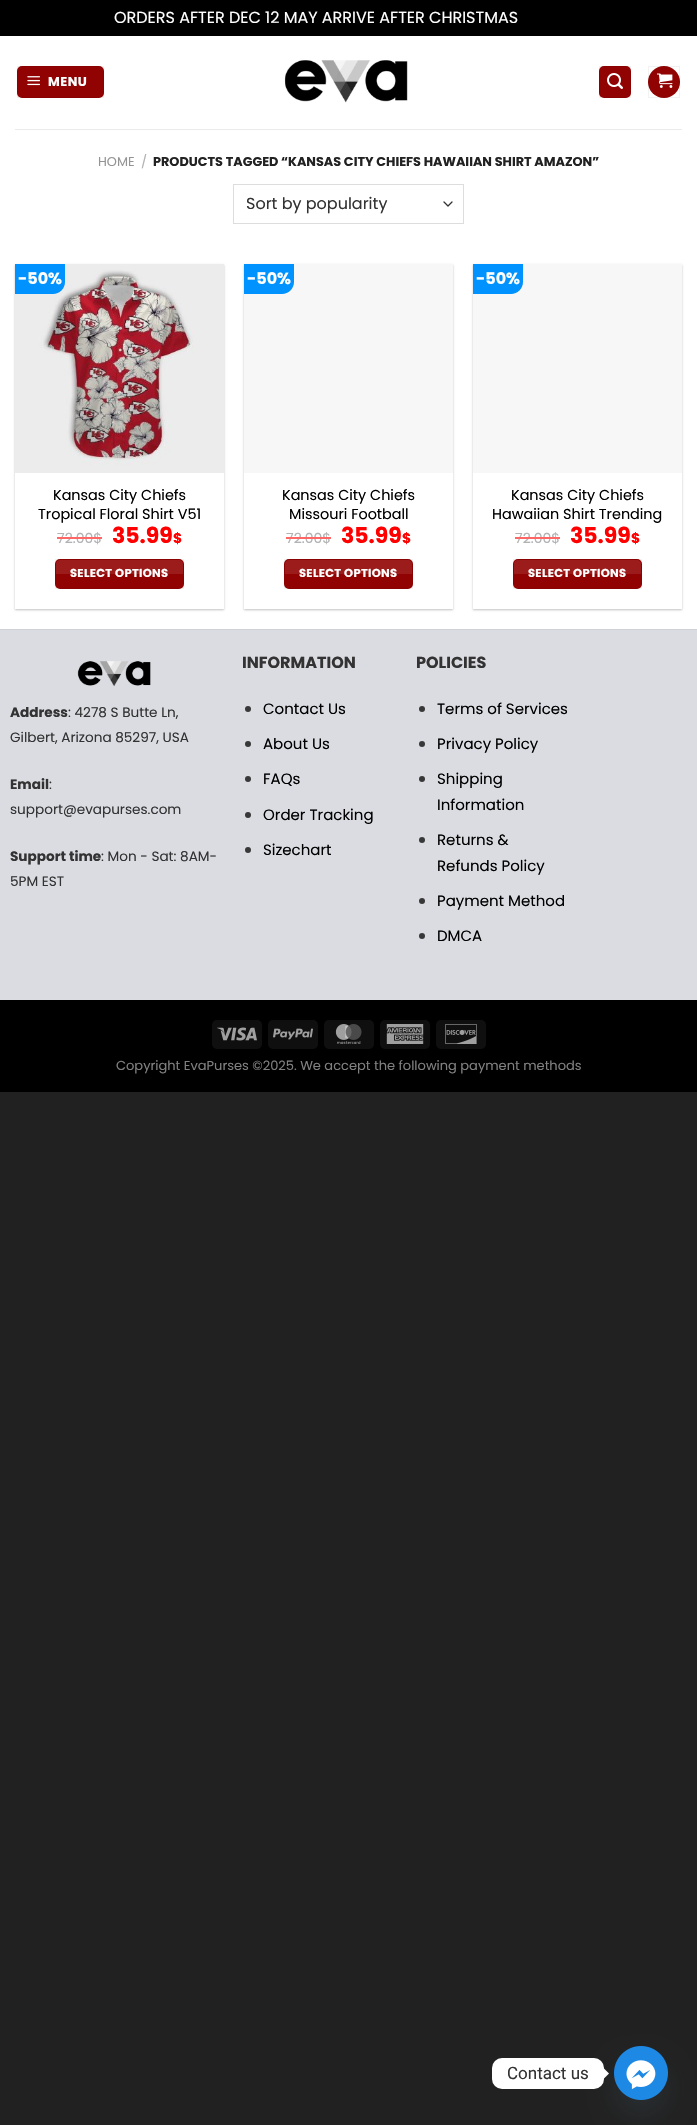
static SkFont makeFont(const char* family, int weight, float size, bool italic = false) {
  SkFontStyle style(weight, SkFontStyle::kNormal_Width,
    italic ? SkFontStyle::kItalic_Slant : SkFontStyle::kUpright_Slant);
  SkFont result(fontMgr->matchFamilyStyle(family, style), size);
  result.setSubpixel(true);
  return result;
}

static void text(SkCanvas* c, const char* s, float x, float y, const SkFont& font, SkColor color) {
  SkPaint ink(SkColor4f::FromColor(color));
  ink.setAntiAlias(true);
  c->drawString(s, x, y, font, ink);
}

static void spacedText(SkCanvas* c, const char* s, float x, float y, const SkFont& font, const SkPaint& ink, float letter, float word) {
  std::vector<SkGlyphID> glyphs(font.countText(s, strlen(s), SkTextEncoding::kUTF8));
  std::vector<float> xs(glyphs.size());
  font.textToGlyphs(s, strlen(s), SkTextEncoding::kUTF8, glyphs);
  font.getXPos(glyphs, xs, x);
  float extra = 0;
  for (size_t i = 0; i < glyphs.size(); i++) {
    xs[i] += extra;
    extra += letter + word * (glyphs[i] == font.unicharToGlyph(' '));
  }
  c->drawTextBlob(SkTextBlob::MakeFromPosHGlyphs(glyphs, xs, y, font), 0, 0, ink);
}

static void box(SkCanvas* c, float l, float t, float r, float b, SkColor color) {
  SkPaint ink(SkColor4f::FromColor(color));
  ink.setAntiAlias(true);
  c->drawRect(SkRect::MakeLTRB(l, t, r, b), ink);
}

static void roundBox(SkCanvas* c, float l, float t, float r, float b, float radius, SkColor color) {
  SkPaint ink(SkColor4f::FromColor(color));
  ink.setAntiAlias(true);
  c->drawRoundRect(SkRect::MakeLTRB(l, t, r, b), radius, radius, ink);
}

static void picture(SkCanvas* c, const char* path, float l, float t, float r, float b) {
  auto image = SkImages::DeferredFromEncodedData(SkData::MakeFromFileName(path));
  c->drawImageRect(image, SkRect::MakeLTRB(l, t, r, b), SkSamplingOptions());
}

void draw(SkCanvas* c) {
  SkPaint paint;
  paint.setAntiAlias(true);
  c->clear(0xff212121);
  box(c, 0, 0, 697, 36, 0xff000000);
  SkFont face1 = makeFont("Poppins", 400, 16);
  text(c, "ORDERS AFTER DEC 12 MAY ARRIVE AFTER CHRISTMAS", 114, 23, face1, 0xffffffff);
  box(c, 0, 36, 697, 629, 0xffffffff);
  roundBox(c, 17, 66, 104, 98, 5, 0xff910202);
  paint.setStyle(SkPaint::kStroke_Style);
  paint.setStrokeWidth(1);
  paint.setColor(0x0d000000);
  c->drawRect(SkRect::MakeLTRB(17.5f, 66.5f, 103.5f, 97.5f), paint);
  picture(c, "img_01.png", 27, 76, 40, 86);
  SkFont face2 = makeFont("Poppins", 700, 12.8f);
  paint.setStyle(SkPaint::kFill_Style);
  paint.setColor(0xffffffff);
  spacedText(c, "MENU", 48, 86, face2, paint, 0.5f, 0);
  picture(c, "img_02.png", 284, 60, 408, 103);
  roundBox(c, 599, 66, 631, 98, 5, 0xff910202);
  paint.setStyle(SkPaint::kStroke_Style);
  paint.setColor(0x0d000000);
  c->drawRect(SkRect::MakeLTRB(599.5f, 66.5f, 630.5f, 97.5f), paint);
  picture(c, "img_03.png", 607, 73, 623, 89);
  paint.setStyle(SkPaint::kFill_Style);
  paint.setColor(0xff910202);
  c->drawCircle(664, 82, 16, paint);
  paint.setStyle(SkPaint::kStroke_Style);
  paint.setColor(0x0d000000);
  c->drawRect(SkRect::MakeLTRB(648.5f, 66.5f, 679.5f, 97.5f), paint);
  picture(c, "img_04.png", 657, 73, 673, 88);
  box(c, 15, 129, 682, 130, 0xffebebeb);
  SkFont face3 = makeFont("Poppins", 400, 12.8f);
  text(c, "HOME", 98, 166, face3, 0xff949494);
  text(c, "/", 141, 166, face3, 0xffb2b2b2);
  text(c, "PRODUCTS TAGGED “KANSAS CITY CHIEFS HAWAIIAN SHIRT AMAZON”", 153, 166, face2, 0xff222222);
  paint.setStrokeWidth(1.3f);
  paint.setStrokeCap(SkPaint::kRound_Cap);
  paint.setStrokeJoin(SkPaint::kRound_Join);
  paint.setColor(0xff333333);
  c->drawPath(SkPathBuilder().moveTo(444, 202).lineTo(448, 206).lineTo(452, 202).detach(), paint);
  paint.setStrokeWidth(1);
  paint.setStrokeCap(SkPaint::kButt_Cap);
  paint.setStrokeJoin(SkPaint::kMiter_Join);
  paint.setColor(0xffdddddd);
  c->drawRect(SkRect::MakeLTRB(233.5f, 184.5f, 463.5f, 223.5f), paint);
  text(c, "Sort by popularity", 246, 209, face1, 0xff333333);
  c->save();
  c->clipPath(SkPathBuilder(SkPathFillType::kEvenOdd).moveTo(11, 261).lineTo(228, 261).lineTo(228, 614).lineTo(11, 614).close().moveTo(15, 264).lineTo(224, 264).lineTo(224, 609).lineTo(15, 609).close().detach(), true);
  paint.setStyle(SkPaint::kFill_Style);
  paint.setColor(0x3d000000);
  paint.setMaskFilter(SkMaskFilter::MakeBlur(kNormal_SkBlurStyle, 1));
  c->drawRect(SkRect::MakeLTRB(15, 265, 224, 610), paint);
  paint.setMaskFilter(nullptr);
  c->restore();
  picture(c, "img_05.png", 15, 264, 224, 473);
  paint.setColor(0xff0092ff);
  c->drawPath(SkPathBuilder().moveTo(15, 264).lineTo(65, 264).lineTo(65, 282).cubicTo(65, 288.5f, 59.5f, 294, 53, 294).lineTo(15, 294).close().detach(), paint);
  SkFont face4 = makeFont("Poppins", 700, 16);
  text(c, "-50%", 18, 284, face4, 0xffffffff);
  SkFont face5 = makeFont("Poppins", 400, 14.4f);
  text(c, "Kansas City Chiefs", 53, 500, face5, 0xff000000);
  text(c, "Tropical Floral Shirt V51", 38, 519, face5, 0xff000000);
  SkFont face6 = makeFont("Poppins", 400, 14);
  text(c, "72.00$", 57, 543, face6, 0xffb2b2b2);
  box(c, 57, 537, 102, 539, 0xffff6666);
  SkFont face7 = makeFont("Poppins", 700, 22);
  text(c, "35.99", 112, 543, face7, 0xffff0000);
  SkFont face8 = makeFont("Poppins", 700, 14);
  text(c, "$", 173, 543, face8, 0xffff0000);
  roundBox(c, 55, 559, 184, 589, 5, 0xff910202);
  paint.setStyle(SkPaint::kStroke_Style);
  paint.setColor(0x0d000000);
  c->drawRect(SkRect::MakeLTRB(55.5f, 559.5f, 183.5f, 588.5f), paint);
  paint.setStyle(SkPaint::kFill_Style);
  paint.setColor(0x1affffff);
  c->drawPath(SkPathBuilder().moveTo(60, 560).lineTo(179, 560).cubicTo(181, 560, 183, 562, 183, 564).lineTo(183, 574).lineTo(56, 574).lineTo(56, 564).cubicTo(56, 562, 58, 560, 60, 560).close().detach(), paint);
  SkFont face9 = makeFont("Poppins", 700, 11.5f);
  paint.setColor(0xffffffff);
  spacedText(c, "SELECT OPTIONS", 70, 577, face9, paint, 0.3f, 0);
  c->save();
  c->clipPath(SkPathBuilder(SkPathFillType::kEvenOdd).moveTo(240, 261).lineTo(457, 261).lineTo(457, 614).lineTo(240, 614).close().moveTo(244, 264).lineTo(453, 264).lineTo(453, 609).lineTo(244, 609).close().detach(), true);
  paint.setColor(0x3d000000);
  paint.setMaskFilter(SkMaskFilter::MakeBlur(kNormal_SkBlurStyle, 1));
  c->drawRect(SkRect::MakeLTRB(244, 265, 453, 610), paint);
  paint.setMaskFilter(nullptr);
  c->restore();
  box(c, 244, 264, 453, 473, 0xfff7f7f7);
  paint.setColor(0xff0092ff);
  c->drawPath(SkPathBuilder().moveTo(244, 264).lineTo(294, 264).lineTo(294, 282).cubicTo(294, 288.5f, 288.5f, 294, 282, 294).lineTo(244, 294).close().detach(), paint);
  text(c, "-50%", 247, 284, face4, 0xffffffff);
  text(c, "Kansas City Chiefs", 282, 500, face5, 0xff000000);
  text(c, "Missouri Football", 289, 519, face5, 0xff000000);
  text(c, "72.00$", 286, 543, face6, 0xffb2b2b2);
  box(c, 286, 537, 331, 539, 0xffff6666);
  text(c, "35.99", 341, 543, face7, 0xffff0000);
  text(c, "$", 402, 543, face8, 0xffff0000);
  roundBox(c, 284, 559, 413, 589, 5, 0xff910202);
  paint.setStyle(SkPaint::kStroke_Style);
  paint.setColor(0x0d000000);
  c->drawRect(SkRect::MakeLTRB(284.5f, 559.5f, 412.5f, 588.5f), paint);
  paint.setStyle(SkPaint::kFill_Style);
  paint.setColor(0x1affffff);
  c->drawPath(SkPathBuilder().moveTo(289, 560).lineTo(408, 560).cubicTo(410, 560, 412, 562, 412, 564).lineTo(412, 574).lineTo(285, 574).lineTo(285, 564).cubicTo(285, 562, 287, 560, 289, 560).close().detach(), paint);
  paint.setColor(0xffffffff);
  spacedText(c, "SELECT OPTIONS", 299, 577, face9, paint, 0.3f, 0);
  c->save();
  c->clipPath(SkPathBuilder(SkPathFillType::kEvenOdd).moveTo(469, 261).lineTo(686, 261).lineTo(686, 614).lineTo(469, 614).close().moveTo(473, 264).lineTo(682, 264).lineTo(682, 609).lineTo(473, 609).close().detach(), true);
  paint.setColor(0x3d000000);
  paint.setMaskFilter(SkMaskFilter::MakeBlur(kNormal_SkBlurStyle, 1));
  c->drawRect(SkRect::MakeLTRB(473, 265, 682, 610), paint);
  paint.setMaskFilter(nullptr);
  c->restore();
  box(c, 473, 264, 682, 473, 0xfff7f7f7);
  paint.setColor(0xff0092ff);
  c->drawPath(SkPathBuilder().moveTo(473, 264).lineTo(523, 264).lineTo(523, 282).cubicTo(523, 288.5f, 517.5f, 294, 511, 294).lineTo(473, 294).close().detach(), paint);
  text(c, "-50%", 476, 284, face4, 0xffffffff);
  text(c, "Kansas City Chiefs", 511, 500, face5, 0xff000000);
  text(c, "Hawaiian Shirt Trending", 492, 519, face5, 0xff000000);
  text(c, "72.00$", 515, 543, face6, 0xffb2b2b2);
  box(c, 515, 537, 560, 539, 0xffff6666);
  text(c, "35.99", 570, 543, face7, 0xffff0000);
  text(c, "$", 631, 543, face8, 0xffff0000);
  roundBox(c, 513, 559, 642, 589, 5, 0xff910202);
  paint.setStyle(SkPaint::kStroke_Style);
  paint.setColor(0x0d000000);
  c->drawRect(SkRect::MakeLTRB(513.5f, 559.5f, 641.5f, 588.5f), paint);
  paint.setStyle(SkPaint::kFill_Style);
  paint.setColor(0x1affffff);
  c->drawPath(SkPathBuilder().moveTo(518, 560).lineTo(637, 560).cubicTo(639, 560, 641, 562, 641, 564).lineTo(641, 574).lineTo(514, 574).lineTo(514, 564).cubicTo(514, 562, 516, 560, 518, 560).close().detach(), paint);
  paint.setColor(0xffffffff);
  spacedText(c, "SELECT OPTIONS", 528, 577, face9, paint, 0.3f, 0);
  box(c, 0, 630, 697, 1000, 0xffdadce1);
  box(c, 0, 629, 697, 630, 0xffcfd1d6);
  picture(c, "img_06.png", 77, 661, 151, 687);
  SkFont face10 = makeFont("Poppins", 700, 13.6f);
  text(c, "Address", 10, 717, face10, 0xff333333);
  SkFont face11 = makeFont("Poppins", 400, 13.6f);
  text(c, ": 4278 S Butte Ln,", 68, 717, face11, 0xff333333);
  text(c, "Gilbert, Arizona 85297, USA", 10, 742, face11, 0xff333333);
  text(c, "Email", 10, 789, face10, 0xff333333);
  text(c, ":", 49, 789, face11, 0xff333333);
  text(c, "support@evapurses.com", 10, 814, face11, 0xff333333);
  text(c, "Support time", 10, 861, face10, 0xff333333);
  text(c, ": Mon - Sat: 8AM-", 101, 861, face11, 0xff333333);
  text(c, "5PM EST", 10, 886, face11, 0xff333333);
  text(c, "INFORMATION", 242, 668, face4, 0xff333333);
  paint.setColor(0xff383838);
  c->drawCircle(248, 709, 3, paint);
  SkFont face12 = makeFont("Poppins", 400, 15);
  text(c, "Contact Us", 263, 714, face12, 0xff000000);
  c->drawCircle(248, 744, 3, paint);
  text(c, "About Us", 263, 749, face12, 0xff000000);
  c->drawCircle(248, 779, 3, paint);
  text(c, "FAQs", 263, 784, face12, 0xff000000);
  c->drawCircle(248, 815, 3, paint);
  text(c, "Order Tracking", 263, 820, face12, 0xff000000);
  c->drawCircle(248, 850, 3, paint);
  text(c, "Sizechart", 263, 855, face12, 0xff000000);
  text(c, "POLICIES", 416, 668, face4, 0xff333333);
  c->drawCircle(422, 709, 3, paint);
  text(c, "Terms of Services", 437, 714, face12, 0xff000000);
  c->drawCircle(422, 744, 3, paint);
  text(c, "Privacy Policy", 437, 749, face12, 0xff000000);
  c->drawCircle(422, 779, 3, paint);
  text(c, "Shipping", 437, 784, face12, 0xff000000);
  text(c, "Information", 437, 810, face12, 0xff000000);
  c->drawCircle(422, 840, 3, paint);
  text(c, "Returns &", 437, 845, face12, 0xff000000);
  text(c, "Refunds Policy", 437, 871, face12, 0xff000000);
  c->drawCircle(422, 901, 3, paint);
  text(c, "Payment Method", 437, 906, face12, 0xff000000);
  c->drawCircle(422, 936, 3, paint);
  text(c, "DMCA", 437, 941, face12, 0xff000000);
  box(c, 0, 1000, 697, 1092, 0xff000000);
  roundBox(c, 212, 1020, 262, 1049, 5, 0xff0f0f0f);
  picture(c, "img_07.png", 217, 1027, 257, 1041);
  roundBox(c, 268, 1020, 318, 1049, 5, 0xff0f0f0f);
  picture(c, "img_08.png", 273, 1028, 313, 1040);
  roundBox(c, 324, 1020, 374, 1049, 5, 0xff0f0f0f);
  picture(c, "img_09.png", 335, 1024, 362, 1044);
  roundBox(c, 380, 1020, 430, 1049, 5, 0xff0f0f0f);
  picture(c, "img_10.png", 386, 1024, 424, 1044);
  roundBox(c, 436, 1020, 486, 1049, 5, 0xff0f0f0f);
  picture(c, "img_11.png", 445, 1024, 477, 1044);
  SkFont face13 = makeFont("Poppins", 400, 13);
  text(c, "Copyright EvaPurses ©2025. We accept the following payment methods", 116, 1070, face13, 0xff808080);
  paint.setColor(0x2949687e);
  paint.setMaskFilter(SkMaskFilter::MakeBlur(kNormal_SkBlurStyle, 12));
  c->drawRoundRect(SkRect::MakeLTRB(614, 2062, 668, 2116), 27, 27, paint);
  paint.setMaskFilter(nullptr);
  roundBox(c, 492, 2058, 604, 2089, 10, 0xffffffff);
  SkFont face14 = makeFont("Roboto", 400, 17);
  text(c, "Contact us", 507, 2079, face14, 0xff333333);
  paint.setColor(0xffffffff);
  c->drawPath(SkPathBuilder().moveTo(604, 2078.5f).lineTo(604, 2068.5f).lineTo(609, 2073.5f).close().detach(), paint);
  picture(c, "img_12.png", 614, 2046, 668, 2100);
}
